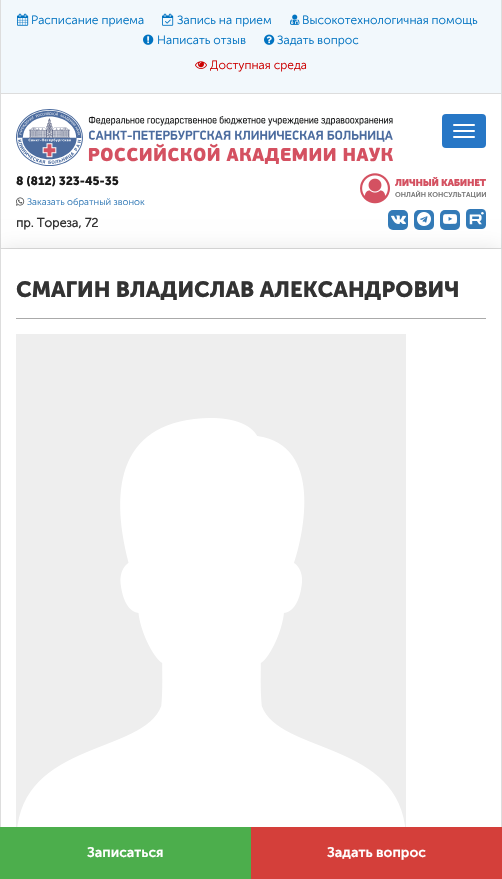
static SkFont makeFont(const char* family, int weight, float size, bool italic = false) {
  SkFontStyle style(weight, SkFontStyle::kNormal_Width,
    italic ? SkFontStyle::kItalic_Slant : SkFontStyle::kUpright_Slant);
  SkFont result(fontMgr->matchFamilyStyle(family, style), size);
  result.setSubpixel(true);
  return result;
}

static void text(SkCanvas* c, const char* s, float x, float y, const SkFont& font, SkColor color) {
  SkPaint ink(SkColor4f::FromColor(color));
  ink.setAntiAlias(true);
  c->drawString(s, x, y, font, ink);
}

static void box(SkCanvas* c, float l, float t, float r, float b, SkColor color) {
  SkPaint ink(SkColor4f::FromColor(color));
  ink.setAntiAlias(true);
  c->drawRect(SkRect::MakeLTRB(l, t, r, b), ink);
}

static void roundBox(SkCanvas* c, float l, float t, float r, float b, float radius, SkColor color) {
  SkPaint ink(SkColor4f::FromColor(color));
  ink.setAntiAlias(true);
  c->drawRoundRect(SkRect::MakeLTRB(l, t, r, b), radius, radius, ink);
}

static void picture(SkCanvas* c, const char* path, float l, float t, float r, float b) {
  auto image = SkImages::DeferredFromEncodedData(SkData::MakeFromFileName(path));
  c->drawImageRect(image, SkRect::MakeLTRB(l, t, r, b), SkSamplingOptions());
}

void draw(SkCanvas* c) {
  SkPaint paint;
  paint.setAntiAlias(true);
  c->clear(0xffdddddd);
  box(c, 1, 0, 501, 93, 0xfff2f8fc);
  picture(c, "img_01.png", 17, 13, 29, 26);
  SkFont face1 = makeFont("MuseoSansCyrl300", 400, 12);
  text(c, "Расписание приема", 31, 24, face1, 0xff0173c1);
  picture(c, "img_02.png", 162, 13, 174, 26);
  text(c, "Запись на прием", 177, 24, face1, 0xff0173c1);
  picture(c, "img_03.png", 290, 14, 300, 25);
  text(c, "Высокотехнологичная помощь", 302, 24, face1, 0xff0173c1);
  picture(c, "img_04.png", 143, 34, 154, 45);
  text(c, "Написать отзыв", 157, 44, face1, 0xff0173c1);
  picture(c, "img_05.png", 264, 34, 275, 45);
  text(c, "Задать вопрос", 277, 44, face1, 0xff0173c1);
  picture(c, "img_06.png", 195, 61, 207, 69);
  text(c, "Доступная среда", 210, 69, face1, 0xffcc0000);
  box(c, 1, 94, 501, 248, 0xffffffff);
  picture(c, "img_07.png", 16, 109, 393, 166);
  roundBox(c, 442, 114, 486, 148, 4, 0xff2777c6);
  roundBox(c, 453, 124, 475, 126, 1, 0xffffffff);
  roundBox(c, 453, 130, 475, 132, 1, 0xffffffff);
  roundBox(c, 453, 136, 475, 138, 1, 0xffffffff);
  SkFont face2 = makeFont("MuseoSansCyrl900", 400, 12);
  text(c, "8 (812) 323-45-35", 16, 185, face2, 0xff1c1c1c);
  picture(c, "img_08.png", 16, 197, 25, 206);
  SkFont face3 = makeFont("MuseoSansCyrl300", 400, 9.5f);
  text(c, "Заказать обратный звонок", 27, 205, face3, 0xff337ab7);
  SkFont face4 = makeFont("MuseoSansCyrl300", 700, 12.5f);
  text(c, "пр. Тореза, 72", 16, 227, face4, 0xff333333);
  picture(c, "img_09.png", 360, 173, 390, 204);
  SkFont face5 = makeFont("MuseoSansCyrl900", 700, 9.5f);
  text(c, "ЛИЧНЫЙ КАБИНЕТ", 395, 186, face5, 0xffd45161);
  SkFont face6 = makeFont("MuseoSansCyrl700", 400, 7);
  text(c, "ОНЛАЙН КОНСУЛЬТАЦИИ", 395, 197, face6, 0xff777777);
  roundBox(c, 388, 210, 408, 230, 5, 0xff337ab7);
  picture(c, "img_10.png", 391, 215, 406, 224);
  roundBox(c, 414, 210, 434, 230, 5, 0xff337ab7);
  picture(c, "img_11.png", 417, 212, 431, 226);
  roundBox(c, 440, 210, 460, 230, 5, 0xff337ab7);
  picture(c, "img_12.png", 443, 214, 457, 224);
  picture(c, "img_13.png", 466, 209, 486, 229);
  paint.setColor(0x1a000000);
  paint.setMaskFilter(SkMaskFilter::MakeBlur(kNormal_SkBlurStyle, 10));
  c->drawRect(SkRect::MakeLTRB(0, 249, 502, 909), paint);
  paint.setMaskFilter(nullptr);
  box(c, 1, 249, 501, 827, 0xffffffff);
  box(c, 501, 249, 502, 827, 0xffdddddd);
  box(c, 0, 249, 1, 827, 0xffdddddd);
  box(c, 16, 318, 486, 319, 0xffaaaaaa);
  SkFont face7 = makeFont("MuseoSansCyrl900", 400, 22);
  text(c, "СМАГИН ВЛАДИСЛАВ АЛЕКСАНДРОВИЧ", 16, 297, face7, 0xff333333);
  box(c, 16, 334, 406, 827, 0xffeeeeee);
  picture(c, "img_14.png", 17, 418, 406, 827);
  box(c, 0, 827, 251, 879, 0xff4cae4c);
  SkFont face8 = makeFont("MuseoSansCyrl700", 400, 14);
  text(c, "Записаться", 87, 857, face8, 0xffffffff);
  box(c, 251, 827, 502, 879, 0xffd43f3a);
  text(c, "Задать вопрос", 327, 857, face8, 0xffffffff);
}
